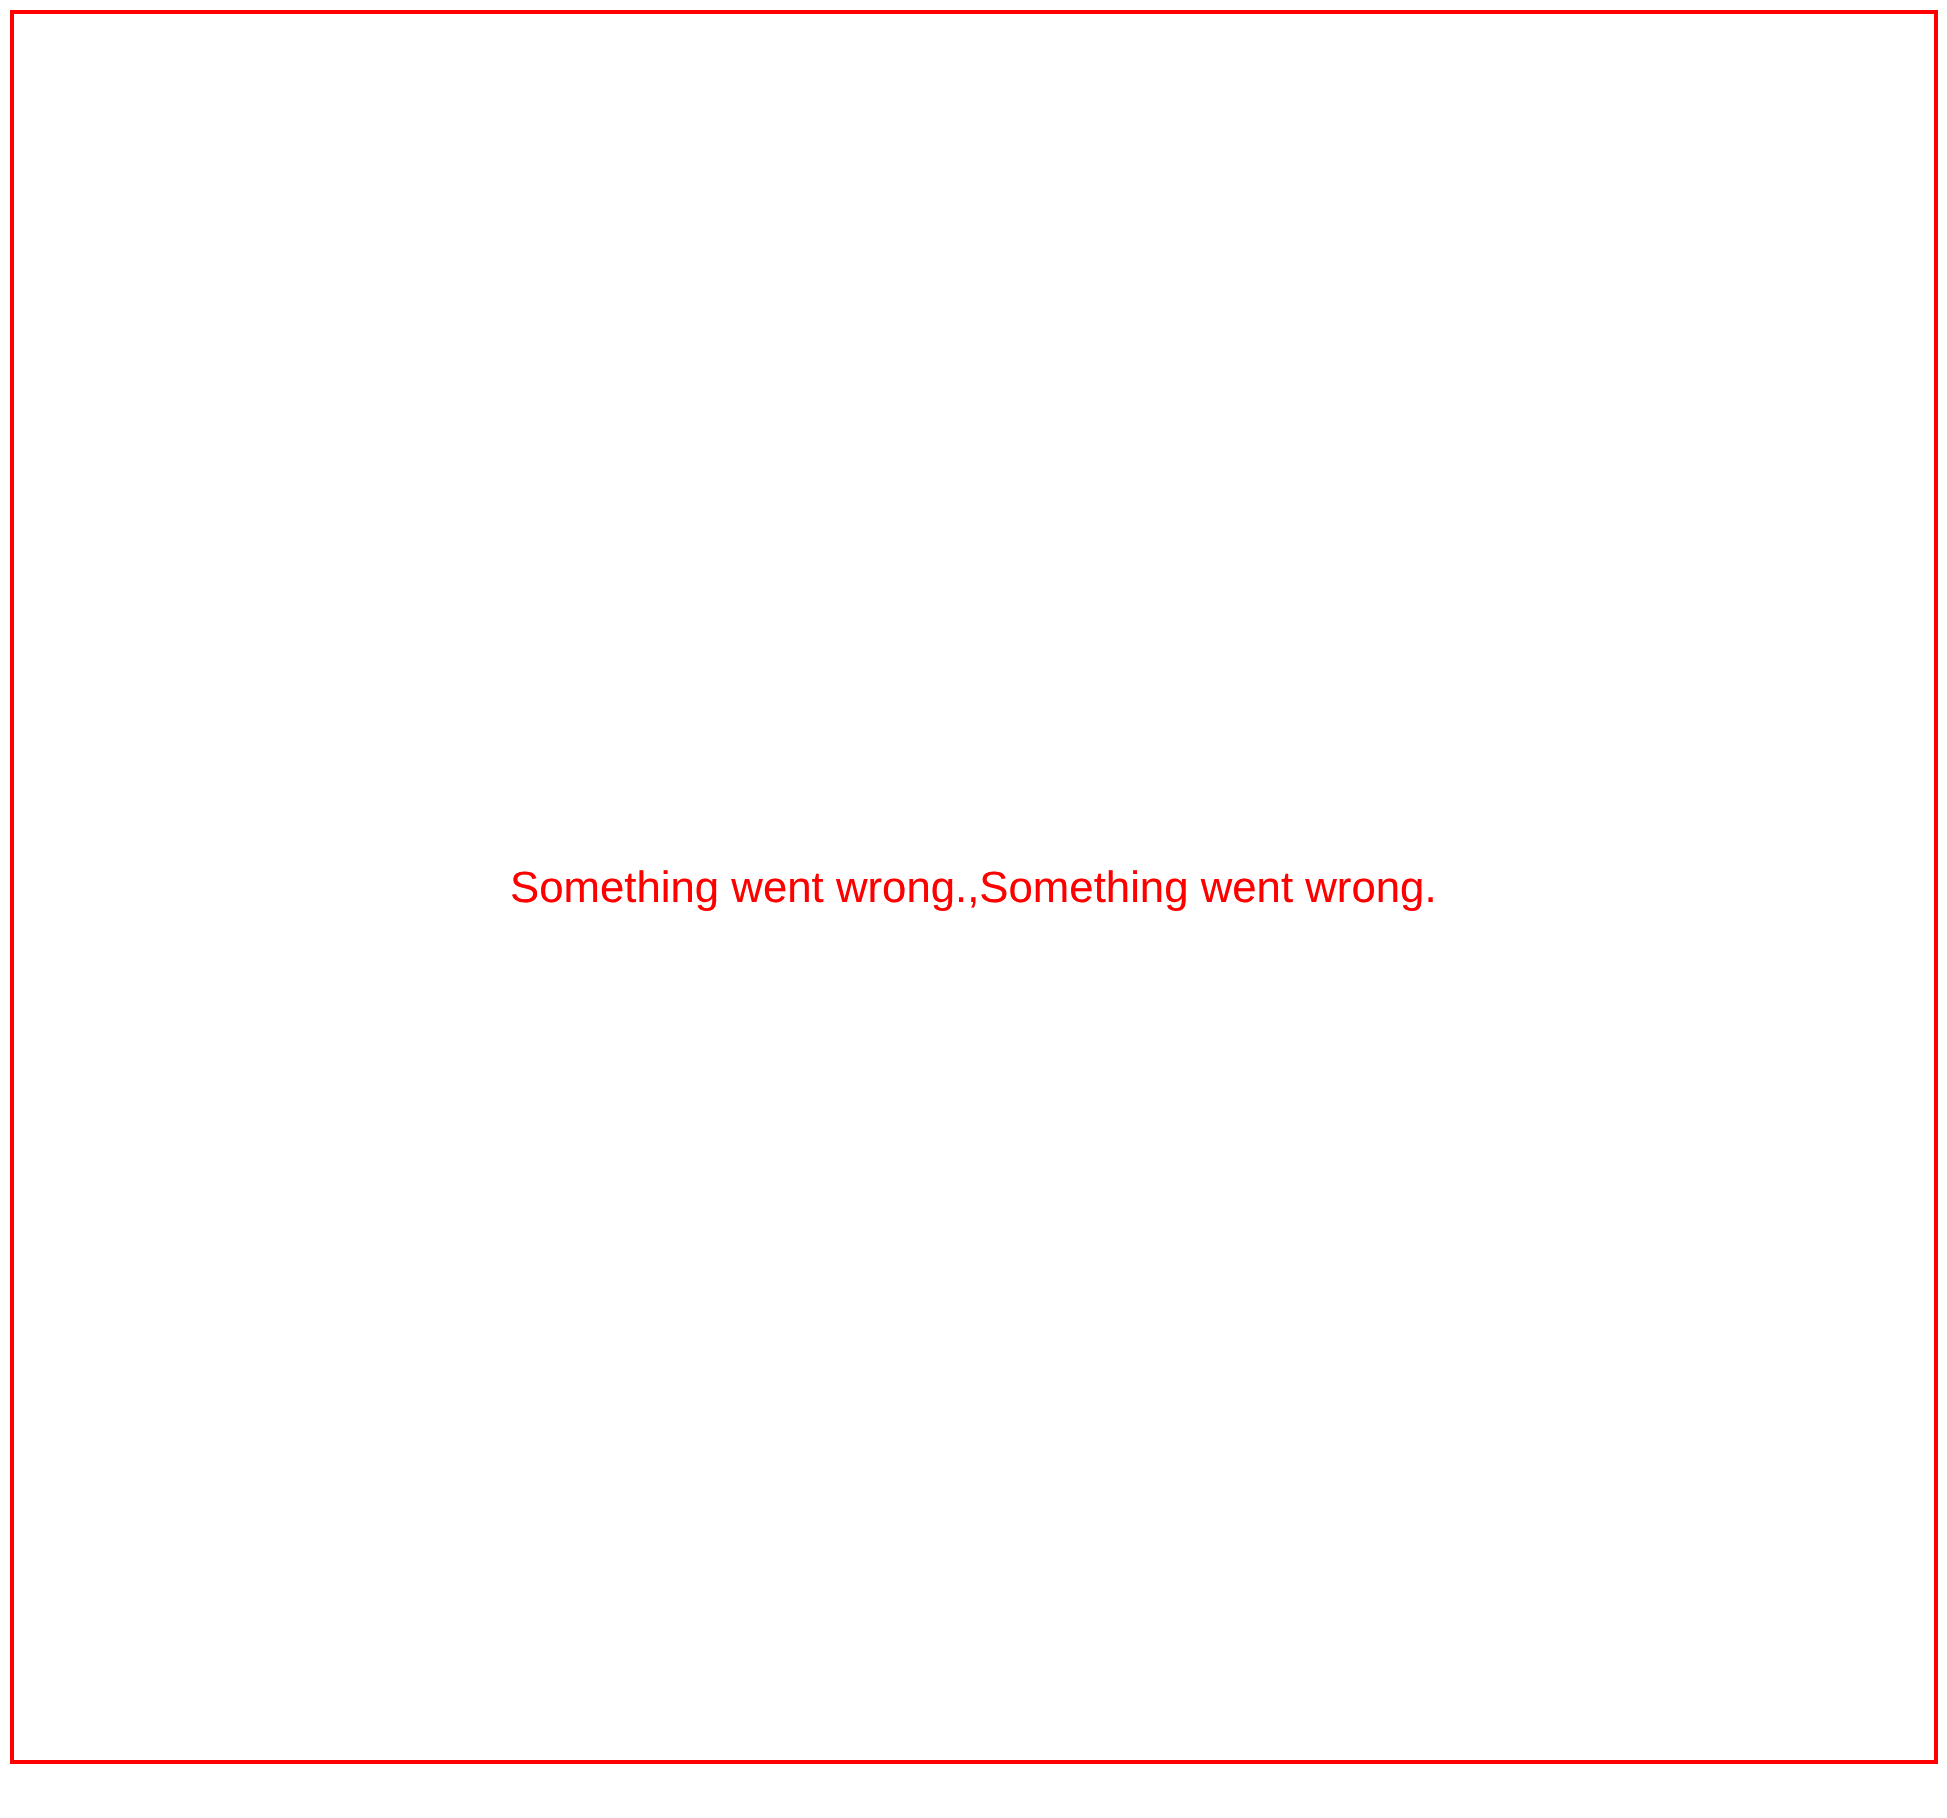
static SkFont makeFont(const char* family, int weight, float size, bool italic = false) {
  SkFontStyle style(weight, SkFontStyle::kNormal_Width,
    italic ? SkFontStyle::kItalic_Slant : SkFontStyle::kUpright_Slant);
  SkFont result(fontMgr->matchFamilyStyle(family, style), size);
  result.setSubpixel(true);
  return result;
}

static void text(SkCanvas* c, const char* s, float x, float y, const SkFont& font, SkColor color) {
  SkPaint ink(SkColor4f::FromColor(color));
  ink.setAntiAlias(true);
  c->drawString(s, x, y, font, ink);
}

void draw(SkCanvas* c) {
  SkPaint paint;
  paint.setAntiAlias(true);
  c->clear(0xffffffff);
  paint.setStyle(SkPaint::kStroke_Style);
  paint.setStrokeWidth(4);
  paint.setColor(0xffff0000);
  c->drawRect(SkRect::MakeLTRB(12, 12, 1936, 1762), paint);
  SkFont face1 = makeFont("Liberation Sans", 400, 43.75f);
  text(c, "Something went wrong.,Something went wrong.", 510, 902, face1, 0xffff0000);
}
